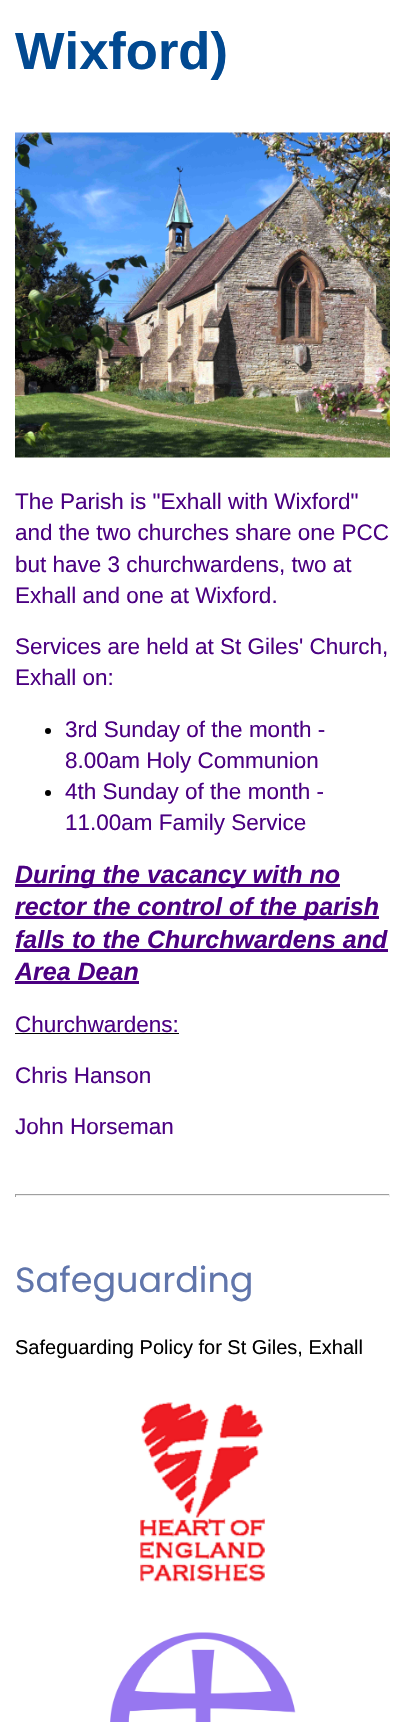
static SkFont makeFont(const char* family, int weight, float size, bool italic = false) {
  SkFontStyle style(weight, SkFontStyle::kNormal_Width,
    italic ? SkFontStyle::kItalic_Slant : SkFontStyle::kUpright_Slant);
  SkFont result(fontMgr->matchFamilyStyle(family, style), size);
  result.setSubpixel(true);
  return result;
}

static void text(SkCanvas* c, const char* s, float x, float y, const SkFont& font, SkColor color) {
  SkPaint ink(SkColor4f::FromColor(color));
  ink.setAntiAlias(true);
  c->drawString(s, x, y, font, ink);
}

static void box(SkCanvas* c, float l, float t, float r, float b, SkColor color) {
  SkPaint ink(SkColor4f::FromColor(color));
  ink.setAntiAlias(true);
  c->drawRect(SkRect::MakeLTRB(l, t, r, b), ink);
}

static void picture(SkCanvas* c, const char* path, float l, float t, float r, float b) {
  auto image = SkImages::DeferredFromEncodedData(SkData::MakeFromFileName(path));
  c->drawImageRect(image, SkRect::MakeLTRB(l, t, r, b), SkSamplingOptions());
}

void draw(SkCanvas* c) {
  SkPaint paint;
  paint.setAntiAlias(true);
  c->clear(0xffffffff);
  SkFont face1 = makeFont("Liberation Sans", 700, 52.5f);
  text(c, "Wixford)", 15, 69, face1, 0xff014991);
  picture(c, "img_01.png", 15, 132, 390, 458);
  SkFont face2 = makeFont("Liberation Sans", 400, 22.5f);
  text(c, "The Parish is \"Exhall with Wixford\"", 15, 509, face2, 0xff4b0082);
  text(c, "and the two churches share one PCC", 15, 540, face2, 0xff4b0082);
  text(c, "but have 3 churchwardens, two at", 15, 572, face2, 0xff4b0082);
  text(c, "Exhall and one at Wixford.", 15, 603, face2, 0xff4b0082);
  text(c, "Services are held at St Giles' Church,", 15, 654, face2, 0xff4b0082);
  text(c, "Exhall on:", 15, 685, face2, 0xff4b0082);
  paint.setColor(0xff000000);
  c->drawCircle(48, 731, 3, paint);
  text(c, "3rd Sunday of the month -", 65, 737, face2, 0xff4b0082);
  text(c, "8.00am Holy Communion", 65, 768, face2, 0xff4b0082);
  c->drawCircle(48, 793, 3, paint);
  text(c, "4th Sunday of the month -", 65, 799, face2, 0xff4b0082);
  text(c, "11.00am Family Service", 65, 830, face2, 0xff4b0082);
  box(c, 15, 884, 340, 887, 0xff4b0082);
  SkFont face3 = makeFont("Liberation Sans", 700, 25, true);
  text(c, "During the vacancy with no", 15, 883, face3, 0xff4b0082);
  box(c, 15, 916, 379, 919, 0xff4b0082);
  text(c, "rector the control of the parish", 15, 915, face3, 0xff4b0082);
  text(c, "falls to the Churchwardens and", 15, 948, face3, 0xff4b0082);
  box(c, 15, 949, 388, 952, 0xff4b0082);
  text(c, "Area Dean", 15, 980, face3, 0xff4b0082);
  box(c, 15, 981, 139, 984, 0xff4b0082);
  text(c, "Churchwardens:", 15, 1032, face2, 0xff4b0082);
  box(c, 15, 1033, 179, 1034, 0xff000000);
  text(c, "Chris Hanson", 15, 1083, face2, 0xff4b0082);
  text(c, "John Horseman", 15, 1134, face2, 0xff4b0082);
  box(c, 15, 1194, 390, 1195, 0xff9f9f9f);
  box(c, 389, 1194, 390, 1197, 0xffeeeeee);
  box(c, 15, 1195, 390, 1196, 0xffeeeeee);
  box(c, 15, 1194, 16, 1197, 0xff9f9f9f);
  SkFont face4 = makeFont("Poppins", 400, 35);
  text(c, "Safeguarding", 15, 1292, face4, 0xff6075ab);
  SkFont face5 = makeFont("Liberation Sans", 400, 20);
  text(c, "Safeguarding Policy for St Giles, Exhall", 15, 1354, face5, 0xff000000);
  picture(c, "img_02.png", 140, 1402, 265, 1582);
  picture(c, "img_03.png", 110, 1632, 296, 1722);
}
